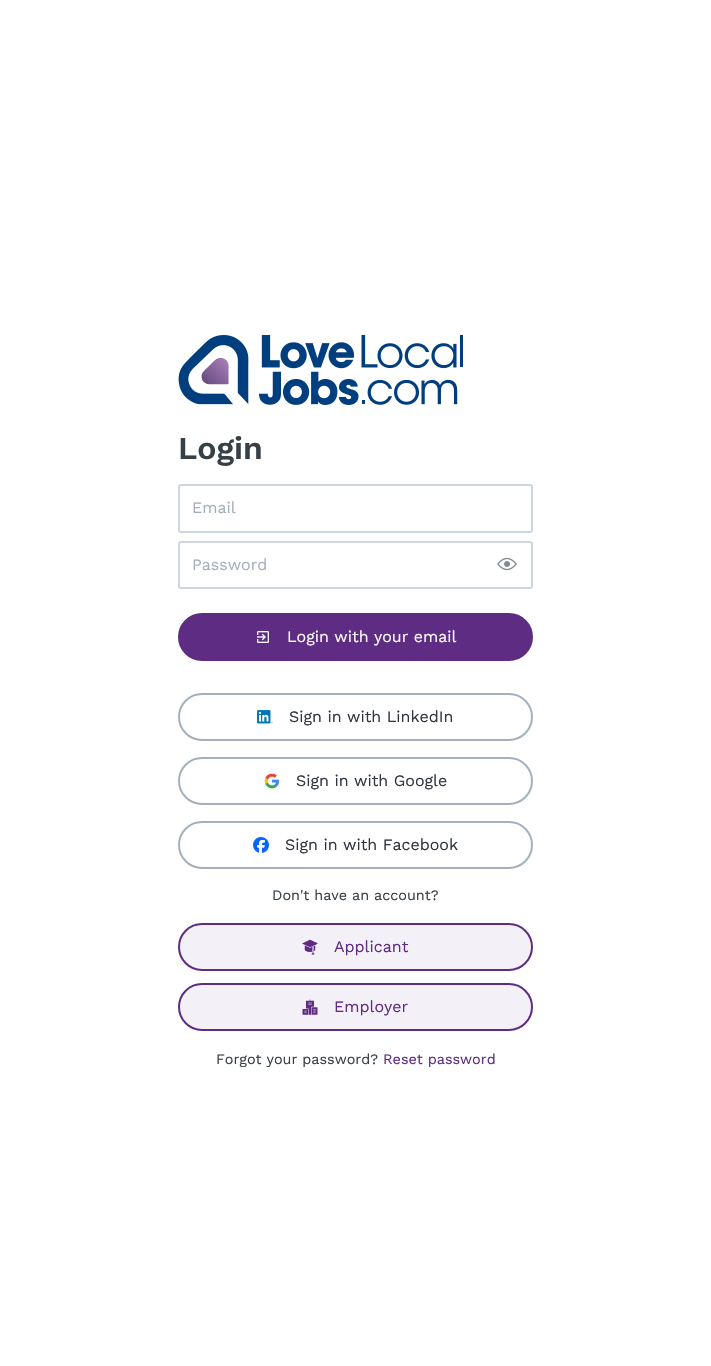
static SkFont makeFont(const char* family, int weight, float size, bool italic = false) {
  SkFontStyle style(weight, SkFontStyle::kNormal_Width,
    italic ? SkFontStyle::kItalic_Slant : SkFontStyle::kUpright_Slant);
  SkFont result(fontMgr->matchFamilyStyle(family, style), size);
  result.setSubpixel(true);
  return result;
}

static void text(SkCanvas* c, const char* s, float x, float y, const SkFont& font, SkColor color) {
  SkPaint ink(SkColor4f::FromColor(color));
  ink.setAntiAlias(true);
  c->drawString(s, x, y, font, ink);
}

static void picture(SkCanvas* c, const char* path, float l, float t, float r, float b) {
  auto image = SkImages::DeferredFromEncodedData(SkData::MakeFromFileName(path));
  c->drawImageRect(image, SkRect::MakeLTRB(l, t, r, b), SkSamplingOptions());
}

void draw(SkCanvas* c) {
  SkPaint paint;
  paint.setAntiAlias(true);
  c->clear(0xffffffff);
  picture(c, "img_01.png", 178, 335, 463, 405);
  SkFont face1 = makeFont("Work Sans", 600, 32);
  text(c, "Login", 178, 459, face1, 0xff374047);
  paint.setStyle(SkPaint::kStroke_Style);
  paint.setStrokeWidth(2);
  paint.setColor(0xffced7e0);
  c->drawRoundRect(SkRect::MakeLTRB(179, 485, 532, 532), 2, 2, paint);
  SkFont face2 = makeFont("Work Sans", 400, 16);
  text(c, "Email", 192, 513, face2, 0xffa4b0be);
  c->drawRoundRect(SkRect::MakeLTRB(179, 542, 532, 588), 2, 2, paint);
  text(c, "Password", 192, 570, face2, 0xffa4b0be);
  picture(c, "img_02.png", 497, 557, 517, 571);
  paint.setStyle(SkPaint::kFill_Style);
  paint.setColor(0xff5e2c83);
  c->drawRoundRect(SkRect::MakeLTRB(179, 614, 532, 660), 23, 23, paint);
  paint.setStyle(SkPaint::kStroke_Style);
  c->drawRoundRect(SkRect::MakeLTRB(179, 614, 532, 660), 23, 23, paint);
  picture(c, "img_03.png", 257, 631, 269, 643);
  text(c, "Login with your email", 287, 642, face2, 0xffffffff);
  paint.setColor(0xffa4b0be);
  c->drawRoundRect(SkRect::MakeLTRB(179, 694, 532, 740), 23, 23, paint);
  picture(c, "img_04.png", 257, 710, 273, 724);
  text(c, "Sign in with LinkedIn", 289, 722, face2, 0xff2f3541);
  c->drawRoundRect(SkRect::MakeLTRB(179, 758, 532, 804), 23, 23, paint);
  picture(c, "img_05.png", 264, 773, 279, 789);
  text(c, "Sign in with Google", 296, 786, face2, 0xff2f3541);
  c->drawRoundRect(SkRect::MakeLTRB(179, 822, 532, 868), 23, 23, paint);
  picture(c, "img_06.png", 253, 837, 269, 853);
  text(c, "Sign in with Facebook", 285, 850, face2, 0xff2f3541);
  SkFont face3 = makeFont("Work Sans", 400, 14.4f);
  text(c, "Don't have an account?", 272, 900, face3, 0xff374047);
  paint.setStyle(SkPaint::kFill_Style);
  paint.setColor(0xfff4f0f7);
  c->drawRoundRect(SkRect::MakeLTRB(179, 924, 532, 970), 23, 23, paint);
  paint.setStyle(SkPaint::kStroke_Style);
  paint.setColor(0xff5e2c83);
  c->drawRoundRect(SkRect::MakeLTRB(179, 924, 532, 970), 23, 23, paint);
  picture(c, "img_07.png", 302, 939, 318, 955);
  text(c, "Applicant", 334, 952, face2, 0xff5e2c83);
  paint.setStyle(SkPaint::kFill_Style);
  paint.setColor(0xfff4f0f7);
  c->drawRoundRect(SkRect::MakeLTRB(179, 984, 532, 1030), 23, 23, paint);
  paint.setStyle(SkPaint::kStroke_Style);
  paint.setColor(0xff5e2c83);
  c->drawRoundRect(SkRect::MakeLTRB(179, 984, 532, 1030), 23, 23, paint);
  picture(c, "img_08.png", 302, 999, 318, 1015);
  text(c, "Employer", 334, 1012, face2, 0xff5e2c83);
  text(c, "Forgot your password?", 216, 1064, face3, 0xff374047);
  text(c, "Reset password", 383, 1064, face3, 0xff5e2c83);
}
